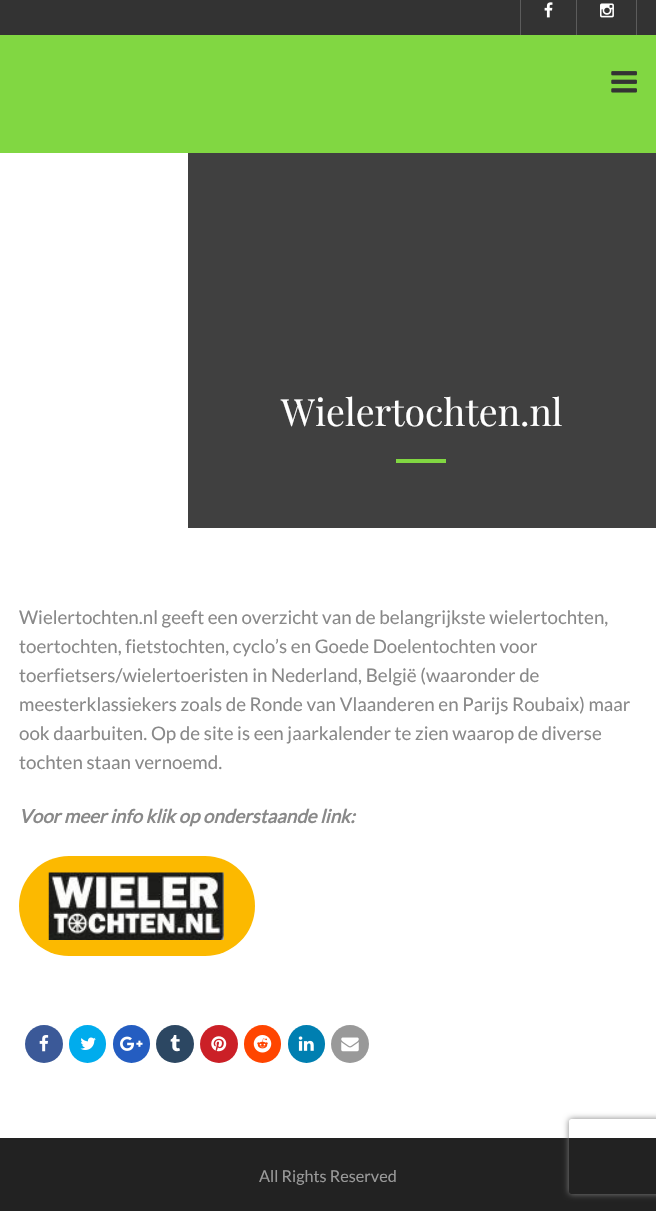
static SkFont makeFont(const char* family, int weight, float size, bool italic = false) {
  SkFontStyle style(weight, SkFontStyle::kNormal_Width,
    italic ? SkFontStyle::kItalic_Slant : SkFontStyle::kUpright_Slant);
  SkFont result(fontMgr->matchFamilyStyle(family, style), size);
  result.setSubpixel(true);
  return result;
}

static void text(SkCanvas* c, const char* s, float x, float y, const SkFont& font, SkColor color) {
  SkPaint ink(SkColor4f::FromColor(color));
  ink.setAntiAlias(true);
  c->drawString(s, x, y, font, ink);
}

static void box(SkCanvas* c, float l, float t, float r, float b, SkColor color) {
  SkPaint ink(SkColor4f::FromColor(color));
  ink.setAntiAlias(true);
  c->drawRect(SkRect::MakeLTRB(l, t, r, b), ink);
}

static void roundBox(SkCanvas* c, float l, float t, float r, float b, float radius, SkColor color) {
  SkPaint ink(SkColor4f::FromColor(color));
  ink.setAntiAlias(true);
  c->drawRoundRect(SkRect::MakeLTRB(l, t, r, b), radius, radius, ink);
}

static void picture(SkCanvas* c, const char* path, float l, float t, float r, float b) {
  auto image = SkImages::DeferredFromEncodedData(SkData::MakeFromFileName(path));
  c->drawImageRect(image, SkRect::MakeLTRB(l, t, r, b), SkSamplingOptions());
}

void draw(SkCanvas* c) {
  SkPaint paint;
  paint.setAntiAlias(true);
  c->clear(0xffffffff);
  box(c, 0, 0, 656, 35, 0xff333333);
  box(c, 520, 0, 521, 35, 0xff5c5c5c);
  box(c, 576, 0, 577, 35, 0xff5c5c5c);
  picture(c, "img_01.png", 544, 2, 553, 18);
  box(c, 636, 0, 637, 35, 0xff5c5c5c);
  picture(c, "img_02.png", 600, 3, 614, 18);
  box(c, 0, 35, 656, 153, 0xff81d742);
  picture(c, "img_03.png", 611, 71, 637, 93);
  box(c, 188, 153, 656, 528, 0xff404040);
  SkFont face1 = makeFont("Playfair Display", 400, 37.5f);
  text(c, "Wielertochten.nl", 281, 426, face1, 0xffffffff);
  box(c, 396, 459, 446, 463, 0xff81d742);
  SkFont face2 = makeFont("Lato", 400, 18.75f);
  text(c, "Wielertochten.nl geeft een overzicht van de belangrijkste wielertochten,", 19, 624, face2, 0xff898989);
  text(c, "toertochten, fietstochten, cyclo’s en Goede Doelentochten voor", 19, 653, face2, 0xff898989);
  text(c, "toerfietsers/wielertoeristen in Nederland, België (waaronder de", 19, 682, face2, 0xff898989);
  text(c, "meesterklassiekers zoals de Ronde van Vlaanderen en Parijs Roubaix) maar", 19, 711, face2, 0xff898989);
  text(c, "ook daarbuiten. Op de site is een jaarkalender te zien waarop de diverse", 19, 740, face2, 0xff898989);
  text(c, "tochten staan vernoemd.", 19, 769, face2, 0xff898989);
  SkFont face3 = makeFont("Lato", 700, 18.75f, true);
  text(c, "Voor meer info klik op onderstaande link:", 19, 823, face3, 0xff898989);
  roundBox(c, 19, 856, 255, 956, 50, 0xfffcb900);
  picture(c, "img_04.png", 48, 872, 224, 940);
  paint.setColor(0xff3b5998);
  c->drawCircle(44, 1044, 19, paint);
  picture(c, "img_05.png", 39, 1035, 49, 1052);
  roundBox(c, 69, 1025, 106, 1063, 18.5f, 0xff00aced);
  picture(c, "img_06.png", 80, 1037, 96, 1050);
  roundBox(c, 113, 1025, 150, 1063, 18.5f, 0xff245dc1);
  picture(c, "img_07.png", 120, 1036, 143, 1051);
  paint.setColor(0xff2c4762);
  c->drawCircle(175, 1044, 19, paint);
  picture(c, "img_08.png", 170, 1035, 180, 1052);
  paint.setColor(0xffcb2027);
  c->drawCircle(219, 1044, 19, paint);
  picture(c, "img_09.png", 211, 1036, 227, 1052);
  roundBox(c, 244, 1025, 281, 1063, 18.5f, 0xffff4500);
  picture(c, "img_10.png", 253, 1035, 272, 1053);
  roundBox(c, 288, 1025, 325, 1063, 18.5f, 0xff007fb1);
  picture(c, "img_11.png", 298, 1036, 314, 1051);
  paint.setColor(0xff999999);
  c->drawCircle(350, 1044, 19, paint);
  picture(c, "img_12.png", 341, 1037, 359, 1052);
  box(c, 0, 1138, 656, 1211, 0xff222222);
  SkFont face4 = makeFont("Lato", 400, 16.25f);
  text(c, "All Rights Reserved", 259, 1182, face4, 0xff999999);
  c->save();
  c->clipPath(SkPathBuilder(SkPathFillType::kEvenOdd).moveTo(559, 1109).lineTo(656, 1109).lineTo(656, 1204).lineTo(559, 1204).close().moveTo(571.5f, 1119).lineTo(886.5f, 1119).cubicTo(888, 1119, 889, 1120, 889, 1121.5f).lineTo(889, 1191.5f).cubicTo(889, 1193, 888, 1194, 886.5f, 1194).lineTo(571.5f, 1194).cubicTo(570, 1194, 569, 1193, 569, 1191.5f).lineTo(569, 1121.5f).cubicTo(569, 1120, 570, 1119, 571.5f, 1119).close().detach(), true);
  paint.setColor(0xff808080);
  paint.setMaskFilter(SkMaskFilter::MakeBlur(kNormal_SkBlurStyle, 3));
  c->drawRoundRect(SkRect::MakeLTRB(569, 1119, 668, 1194), 2.5f, 2.5f, paint);
  paint.setMaskFilter(nullptr);
  c->restore();
}
